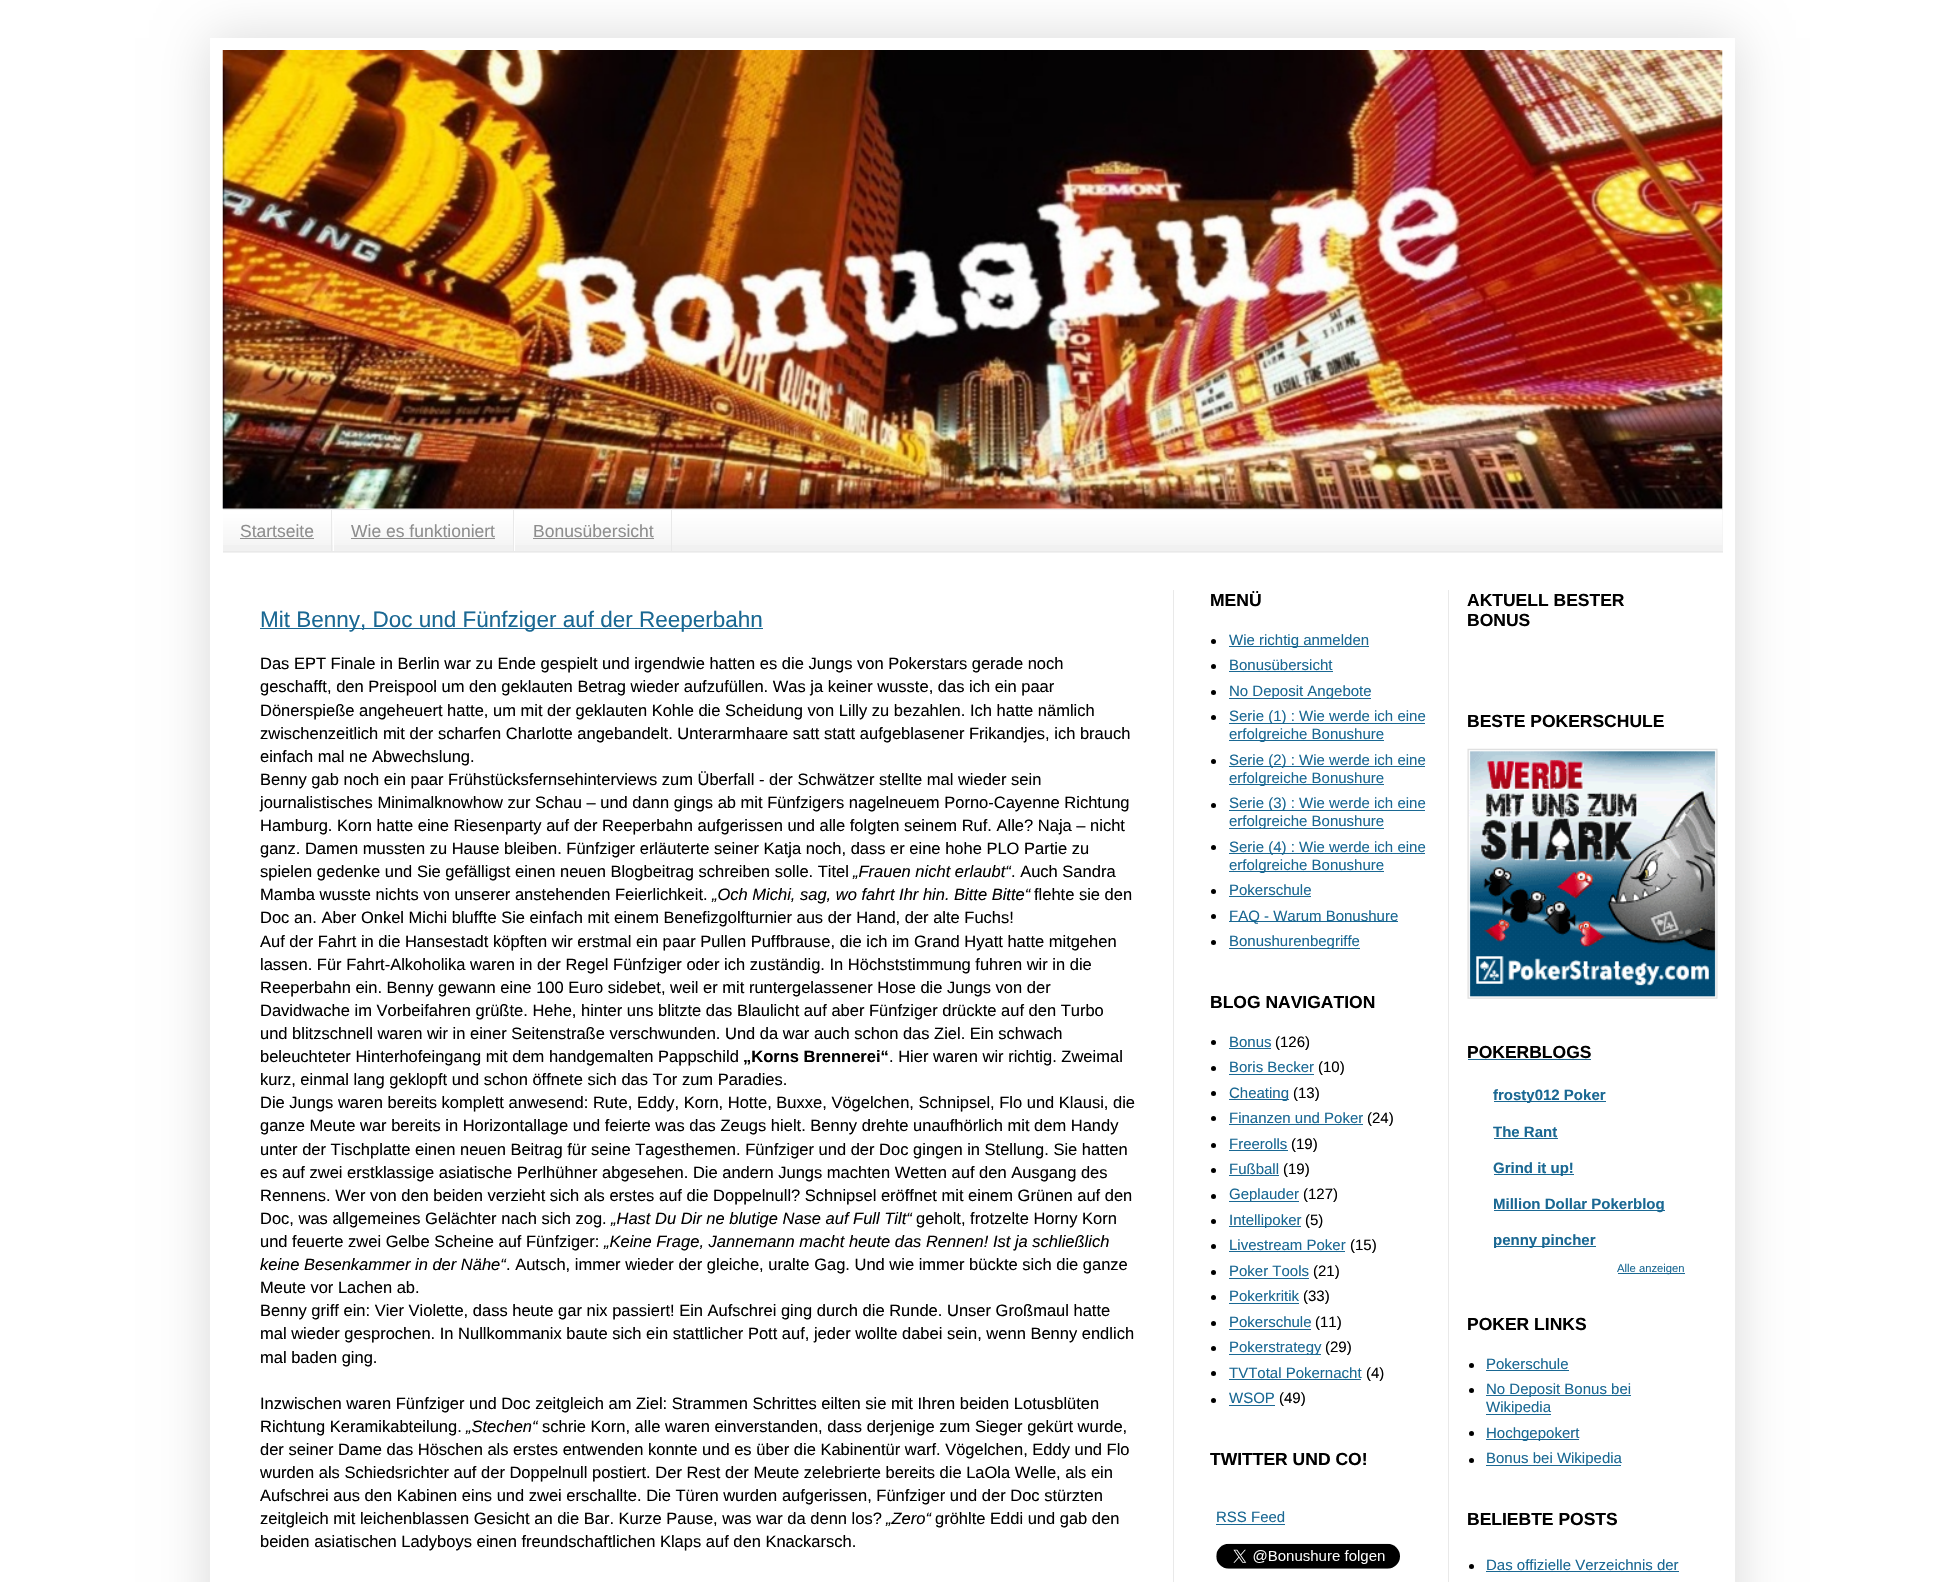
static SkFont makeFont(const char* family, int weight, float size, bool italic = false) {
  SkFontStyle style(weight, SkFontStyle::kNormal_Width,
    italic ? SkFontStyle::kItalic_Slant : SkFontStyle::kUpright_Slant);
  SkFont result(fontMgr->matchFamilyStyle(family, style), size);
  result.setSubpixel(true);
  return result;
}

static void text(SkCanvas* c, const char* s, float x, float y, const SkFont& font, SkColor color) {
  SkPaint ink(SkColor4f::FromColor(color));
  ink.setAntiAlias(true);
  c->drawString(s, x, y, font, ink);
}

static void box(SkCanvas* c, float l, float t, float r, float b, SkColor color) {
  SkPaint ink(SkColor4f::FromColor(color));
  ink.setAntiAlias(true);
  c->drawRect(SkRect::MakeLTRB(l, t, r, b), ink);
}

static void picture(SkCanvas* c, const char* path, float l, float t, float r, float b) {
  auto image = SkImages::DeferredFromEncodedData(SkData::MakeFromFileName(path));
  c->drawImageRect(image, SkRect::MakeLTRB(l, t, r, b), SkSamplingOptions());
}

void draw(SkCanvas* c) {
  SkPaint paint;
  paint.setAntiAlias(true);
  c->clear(0xffffffff);
  c->save();
  c->clipPath(SkPathBuilder(SkPathFillType::kEvenOdd).moveTo(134, 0).lineTo(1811, 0).lineTo(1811, 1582).lineTo(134, 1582).close().moveTo(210, 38).lineTo(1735, 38).lineTo(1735, 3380).lineTo(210, 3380).close().detach(), true);
  paint.setColor(0x26000000);
  paint.setMaskFilter(SkMaskFilter::MakeBlur(kNormal_SkBlurStyle, 25));
  c->drawRect(SkRect::MakeLTRB(210, 38, 1735, 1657), paint);
  paint.setMaskFilter(nullptr);
  c->restore();
  picture(c, "img_01.png", 222, 50, 1723, 509);
  box(c, 223, 510, 1723, 553, 0xfff1f1f1);
  picture(c, "img_02.png", 223, 510, 1723, 545);
  box(c, 223, 509, 1723, 510, 0xffe9e9e9);
  box(c, 223, 551, 1723, 552, 0xffe9e9e9);
  box(c, 331, 510, 332, 551, 0xffe9e9e9);
  SkFont face1 = makeFont("Liberation Sans", 400, 17.5f);
  text(c, "Startseite", 240, 537, face1, 0xff8e8e8e);
  box(c, 240, 538, 314, 539, 0xff8e8e8e);
  box(c, 513, 510, 514, 551, 0xffe9e9e9);
  box(c, 333, 520, 334, 551, 0xffffffff);
  text(c, "Wie es funktioniert", 351, 537, face1, 0xff8e8e8e);
  box(c, 351, 538, 495, 539, 0xff8e8e8e);
  box(c, 671, 510, 672, 551, 0xffe9e9e9);
  box(c, 514, 520, 515, 551, 0xffffffff);
  text(c, "Bonusübersicht", 533, 537, face1, 0xff8e8e8e);
  box(c, 533, 538, 654, 539, 0xff8e8e8e);
  box(c, 1173, 590, 1174, 1582, 0xffe9e9e9);
  box(c, 260, 628, 763, 629, 0xff1a6893);
  SkFont face2 = makeFont("Liberation Sans", 400, 22.5f);
  text(c, "Mit Benny, Doc und Fünfziger auf der Reeperbahn", 260, 627, face2, 0xff1a6893);
  SkFont face3 = makeFont("Liberation Sans", 400, 16.5f);
  text(c, "Das EPT Finale in Berlin war zu Ende gespielt und irgendwie hatten es die Jungs von Pokerstars gerade noch", 260, 669, face3, 0xff000000);
  text(c, "geschafft, den Preispool um den geklauten Betrag wieder aufzufüllen. Was ja keiner wusste, das ich ein paar", 260, 692, face3, 0xff000000);
  text(c, "Dönerspieße angeheuert hatte, um mit der geklauten Kohle die Scheidung von Lilly zu bezahlen. Ich hatte nämlich", 260, 716, face3, 0xff000000);
  text(c, "zwischenzeitlich mit der scharfen Charlotte angebandelt. Unterarmhaare satt statt aufgeblasener Frikandjes, ich brauch", 260, 739, face3, 0xff000000);
  text(c, "einfach mal ne Abwechslung.", 260, 762, face3, 0xff000000);
  text(c, "Benny gab noch ein paar Frühstücksfernsehinterviews zum Überfall - der Schwätzer stellte mal wieder sein", 260, 785, face3, 0xff000000);
  text(c, "journalistisches Minimalknowhow zur Schau – und dann gings ab mit Fünfzigers nagelneuem Porno-Cayenne Richtung", 260, 808, face3, 0xff000000);
  text(c, "Hamburg. Korn hatte eine Riesenparty auf der Reeperbahn aufgerissen und alle folgten seinem Ruf. Alle? Naja – nicht", 260, 831, face3, 0xff000000);
  text(c, "ganz. Damen mussten zu Hause bleiben. Fünfziger erläuterte seiner Katja noch, dass er eine hohe PLO Partie zu", 260, 854, face3, 0xff000000);
  text(c, "spielen gedenke und Sie gefälligst einen neuen Blogbeitrag schreiben solle. Titel", 260, 877, face3, 0xff000000);
  SkFont face4 = makeFont("Liberation Sans", 400, 16.5f, true);
  text(c, "„Frauen nicht erlaubt“", 853, 877, face4, 0xff000000);
  text(c, ". Auch Sandra", 1011, 877, face3, 0xff000000);
  text(c, "Mamba wusste nichts von unserer anstehenden Feierlichkeit.", 260, 900, face3, 0xff000000);
  text(c, "„Och Michi, sag, wo fahrt Ihr hin. Bitte Bitte“", 712, 900, face4, 0xff000000);
  text(c, "flehte sie den", 1034, 900, face3, 0xff000000);
  text(c, "Doc an. Aber Onkel Michi bluffte Sie einfach mit einem Benefizgolfturnier aus der Hand, der alte Fuchs!", 260, 923, face3, 0xff000000);
  text(c, "Auf der Fahrt in die Hansestadt köpften wir erstmal ein paar Pullen Puffbrause, die ich im Grand Hyatt hatte mitgehen", 260, 947, face3, 0xff000000);
  text(c, "lassen. Für Fahrt-Alkoholika waren in der Regel Fünfziger oder ich zuständig. In Höchststimmung fuhren wir in die", 260, 970, face3, 0xff000000);
  text(c, "Reeperbahn ein. Benny gewann eine 100 Euro sidebet, weil er mit runtergelassener Hose die Jungs von der", 260, 993, face3, 0xff000000);
  text(c, "Davidwache im Vorbeifahren grüßte. Hehe, hinter uns blitzte das Blaulicht auf aber Fünfziger drückte auf den Turbo", 260, 1016, face3, 0xff000000);
  text(c, "und blitzschnell waren wir in einer Seitenstraße verschwunden. Und da war auch schon das Ziel. Ein schwach", 260, 1039, face3, 0xff000000);
  text(c, "beleuchteter Hinterhofeingang mit dem handgemalten Pappschild", 260, 1062, face3, 0xff000000);
  SkFont face5 = makeFont("Liberation Sans", 700, 16.5f);
  text(c, "„Korns Brennerei“", 743, 1062, face5, 0xff000000);
  text(c, ". Hier waren wir richtig. Zweimal", 889, 1062, face3, 0xff000000);
  text(c, "kurz, einmal lang geklopft und schon öffnete sich das Tor zum Paradies.", 260, 1085, face3, 0xff000000);
  text(c, "Die Jungs waren bereits komplett anwesend: Rute, Eddy, Korn, Hotte, Buxxe, Vögelchen, Schnipsel, Flo und Klausi, die", 260, 1108, face3, 0xff000000);
  text(c, "ganze Meute war bereits in Horizontallage und feierte was das Zeugs hielt. Benny drehte unaufhörlich mit dem Handy", 260, 1131, face3, 0xff000000);
  text(c, "unter der Tischplatte einen neuen Beitrag für seine Tagesthemen. Fünfziger und der Doc gingen in Stellung. Sie hatten", 260, 1155, face3, 0xff000000);
  text(c, "es auf zwei erstklassige asiatische Perlhühner abgesehen. Die andern Jungs machten Wetten auf den Ausgang des", 260, 1178, face3, 0xff000000);
  text(c, "Rennens. Wer von den beiden verzieht sich als erstes auf die Doppelnull? Schnipsel eröffnet mit einem Grünen auf den", 260, 1201, face3, 0xff000000);
  text(c, "Doc, was allgemeines Gelächter nach sich zog.", 260, 1224, face3, 0xff000000);
  text(c, "„Hast Du Dir ne blutige Nase auf Full Tilt“", 611, 1224, face4, 0xff000000);
  text(c, "geholt, frotzelte Horny Korn", 916, 1224, face3, 0xff000000);
  text(c, "und feuerte zwei Gelbe Scheine auf Fünfziger:", 260, 1247, face3, 0xff000000);
  text(c, "„Keine Frage, Jannemann macht heute das Rennen! Ist ja schließlich", 604, 1247, face4, 0xff000000);
  text(c, "keine Besenkammer in der Nähe“", 260, 1270, face4, 0xff000000);
  text(c, ". Autsch, immer wieder der gleiche, uralte Gag. Und wie immer bückte sich die ganze", 506, 1270, face3, 0xff000000);
  text(c, "Meute vor Lachen ab.", 260, 1293, face3, 0xff000000);
  text(c, "Benny griff ein: Vier Violette, dass heute gar nix passiert! Ein Aufschrei ging durch die Runde. Unser Großmaul hatte", 260, 1316, face3, 0xff000000);
  text(c, "mal wieder gesprochen. In Nullkommanix baute sich ein stattlicher Pott auf, jeder wollte dabei sein, wenn Benny endlich", 260, 1339, face3, 0xff000000);
  text(c, "mal baden ging.", 260, 1363, face3, 0xff000000);
  text(c, "Inzwischen waren Fünfziger und Doc zeitgleich am Ziel: Strammen Schrittes eilten sie mit Ihren beiden Lotusblüten", 260, 1409, face3, 0xff000000);
  text(c, "Richtung Keramikabteilung.", 260, 1432, face3, 0xff000000);
  text(c, "„Stechen“", 466, 1432, face4, 0xff000000);
  text(c, "schrie Korn, alle waren einverstanden, dass derjenige zum Sieger gekürt wurde,", 542, 1432, face3, 0xff000000);
  text(c, "der seiner Dame das Höschen als erstes entwenden konnte und es über die Kabinentür warf. Vögelchen, Eddy und Flo", 260, 1455, face3, 0xff000000);
  text(c, "wurden als Schiedsrichter auf der Doppelnull postiert. Der Rest der Meute zelebrierte bereits die LaOla Welle, als ein", 260, 1478, face3, 0xff000000);
  text(c, "Aufschrei aus den Kabinen eins und zwei erschallte. Die Türen wurden aufgerissen, Fünfziger und der Doc stürzten", 260, 1501, face3, 0xff000000);
  text(c, "zeitgleich mit leichenblassen Gesicht an die Bar. Kurze Pause, was war da denn los?", 260, 1524, face3, 0xff000000);
  text(c, "„Zero“", 886, 1524, face4, 0xff000000);
  text(c, "gröhlte Eddi und gab den", 935, 1524, face3, 0xff000000);
  text(c, "beiden asiatischen Ladyboys einen freundschaftlichen Klaps auf den Knackarsch.", 260, 1547, face3, 0xff000000);
  SkFont face6 = makeFont("Liberation Sans", 700, 17.5f);
  text(c, "MENÜ", 1210, 606, face6, 0xff000000);
  paint.setColor(0xff000000);
  c->drawCircle(1213.5f, 641.5f, 2.5f, paint);
  box(c, 1229, 646, 1369, 647, 0xff1a6893);
  SkFont face7 = makeFont("Liberation Sans", 400, 15);
  text(c, "Wie richtig anmelden", 1229, 645, face7, 0xff1a6893);
  c->drawCircle(1213.5f, 666.5f, 2.5f, paint);
  text(c, "Bonusübersicht", 1229, 670, face7, 0xff1a6893);
  box(c, 1229, 671, 1333, 672, 0xff1a6893);
  c->drawCircle(1213.5f, 692.5f, 2.5f, paint);
  box(c, 1229, 698, 1371, 699, 0xff1a6893);
  text(c, "No Deposit Angebote", 1229, 696, face7, 0xff1a6893);
  c->drawCircle(1213.5f, 717.5f, 2.5f, paint);
  box(c, 1229, 723, 1425, 724, 0xff1a6893);
  text(c, "Serie (1) : Wie werde ich eine", 1229, 721, face7, 0xff1a6893);
  box(c, 1229, 740, 1384, 741, 0xff1a6893);
  text(c, "erfolgreiche Bonushure", 1229, 739, face7, 0xff1a6893);
  c->drawCircle(1213.5f, 761.5f, 2.5f, paint);
  box(c, 1229, 766, 1425, 767, 0xff1a6893);
  text(c, "Serie (2) : Wie werde ich eine", 1229, 765, face7, 0xff1a6893);
  box(c, 1229, 784, 1384, 785, 0xff1a6893);
  text(c, "erfolgreiche Bonushure", 1229, 783, face7, 0xff1a6893);
  c->drawCircle(1213.5f, 805.5f, 2.5f, paint);
  box(c, 1229, 810, 1425, 811, 0xff1a6893);
  text(c, "Serie (3) : Wie werde ich eine", 1229, 808, face7, 0xff1a6893);
  box(c, 1229, 828, 1384, 829, 0xff1a6893);
  text(c, "erfolgreiche Bonushure", 1229, 826, face7, 0xff1a6893);
  c->drawCircle(1213.5f, 847.5f, 2.5f, paint);
  box(c, 1229, 853, 1425, 854, 0xff1a6893);
  text(c, "Serie (4) : Wie werde ich eine", 1229, 852, face7, 0xff1a6893);
  box(c, 1229, 871, 1384, 872, 0xff1a6893);
  text(c, "erfolgreiche Bonushure", 1229, 870, face7, 0xff1a6893);
  c->drawCircle(1213.5f, 891.5f, 2.5f, paint);
  text(c, "Pokerschule", 1229, 895, face7, 0xff1a6893);
  box(c, 1229, 896, 1311, 897, 0xff1a6893);
  c->drawCircle(1213.5f, 916.5f, 2.5f, paint);
  box(c, 1229, 921, 1398, 922, 0xff1a6893);
  text(c, "FAQ - Warum Bonushure", 1229, 921, face7, 0xff1a6893);
  c->drawCircle(1213.5f, 942.5f, 2.5f, paint);
  box(c, 1229, 948, 1360, 949, 0xff1a6893);
  text(c, "Bonushurenbegriffe", 1229, 946, face7, 0xff1a6893);
  text(c, "BLOG NAVIGATION", 1210, 1008, face6, 0xff000000);
  c->drawCircle(1213.5f, 1042.5f, 2.5f, paint);
  text(c, "Bonus", 1229, 1047, face7, 0xff1a6893);
  box(c, 1229, 1048, 1271, 1049, 0xff1a6893);
  text(c, "(126)", 1275, 1047, face7, 0xff000000);
  c->drawCircle(1213.5f, 1068.5f, 2.5f, paint);
  text(c, "Boris Becker", 1229, 1072, face7, 0xff1a6893);
  box(c, 1229, 1074, 1314, 1075, 0xff1a6893);
  text(c, "(10)", 1318, 1072, face7, 0xff000000);
  c->drawCircle(1213.5f, 1093.5f, 2.5f, paint);
  box(c, 1229, 1099, 1289, 1100, 0xff1a6893);
  text(c, "Cheating", 1229, 1098, face7, 0xff1a6893);
  text(c, "(13)", 1293, 1098, face7, 0xff000000);
  c->drawCircle(1213.5f, 1118.5f, 2.5f, paint);
  text(c, "Finanzen und Poker", 1229, 1123, face7, 0xff1a6893);
  box(c, 1229, 1124, 1363, 1125, 0xff1a6893);
  text(c, "(24)", 1367, 1123, face7, 0xff000000);
  c->drawCircle(1213.5f, 1145.5f, 2.5f, paint);
  text(c, "Freerolls", 1229, 1149, face7, 0xff1a6893);
  box(c, 1229, 1150, 1288, 1151, 0xff1a6893);
  text(c, "(19)", 1291, 1149, face7, 0xff000000);
  c->drawCircle(1213.5f, 1170.5f, 2.5f, paint);
  text(c, "Fußball", 1229, 1174, face7, 0xff1a6893);
  box(c, 1229, 1175, 1279, 1176, 0xff1a6893);
  text(c, "(19)", 1283, 1174, face7, 0xff000000);
  c->drawCircle(1213.5f, 1196.5f, 2.5f, paint);
  box(c, 1229, 1201, 1299, 1202, 0xff1a6893);
  text(c, "Geplauder", 1229, 1199, face7, 0xff1a6893);
  text(c, "(127)", 1303, 1199, face7, 0xff000000);
  c->drawCircle(1213.5f, 1221.5f, 2.5f, paint);
  box(c, 1229, 1226, 1301, 1227, 0xff1a6893);
  text(c, "Intellipoker", 1229, 1225, face7, 0xff1a6893);
  text(c, "(5)", 1305, 1225, face7, 0xff000000);
  c->drawCircle(1213.5f, 1246.5f, 2.5f, paint);
  text(c, "Livestream Poker", 1229, 1250, face7, 0xff1a6893);
  box(c, 1229, 1251, 1345, 1252, 0xff1a6893);
  text(c, "(15)", 1350, 1250, face7, 0xff000000);
  c->drawCircle(1213.5f, 1272.5f, 2.5f, paint);
  text(c, "Poker Tools", 1229, 1276, face7, 0xff1a6893);
  box(c, 1229, 1278, 1309, 1279, 0xff1a6893);
  text(c, "(21)", 1313, 1276, face7, 0xff000000);
  c->drawCircle(1213.5f, 1297.5f, 2.5f, paint);
  text(c, "Pokerkritik", 1229, 1301, face7, 0xff1a6893);
  box(c, 1229, 1303, 1299, 1304, 0xff1a6893);
  text(c, "(33)", 1303, 1301, face7, 0xff000000);
  c->drawCircle(1213.5f, 1323.5f, 2.5f, paint);
  text(c, "Pokerschule", 1229, 1327, face7, 0xff1a6893);
  box(c, 1229, 1329, 1311, 1330, 0xff1a6893);
  text(c, "(11)", 1315, 1327, face7, 0xff000000);
  c->drawCircle(1213.5f, 1348.5f, 2.5f, paint);
  box(c, 1229, 1354, 1321, 1355, 0xff1a6893);
  text(c, "Pokerstrategy", 1229, 1352, face7, 0xff1a6893);
  text(c, "(29)", 1325, 1352, face7, 0xff000000);
  c->drawCircle(1213.5f, 1373.5f, 2.5f, paint);
  text(c, "TVTotal Pokernacht", 1229, 1378, face7, 0xff1a6893);
  box(c, 1229, 1379, 1361, 1380, 0xff1a6893);
  text(c, "(4)", 1366, 1378, face7, 0xff000000);
  c->drawCircle(1213.5f, 1400.5f, 2.5f, paint);
  text(c, "WSOP", 1229, 1403, face7, 0xff1a6893);
  box(c, 1229, 1405, 1275, 1406, 0xff1a6893);
  text(c, "(49)", 1279, 1403, face7, 0xff000000);
  text(c, "TWITTER UND CO!", 1210, 1465, face6, 0xff000000);
  text(c, "RSS Feed", 1216, 1522, face7, 0xff1a6893);
  box(c, 1216, 1524, 1285, 1525, 0xff1a6893);
  picture(c, "img_03.png", 1216, 1543, 1400, 1569);
  box(c, 1448, 590, 1449, 1582, 0xffe9e9e9);
  text(c, "AKTUELL BESTER", 1467, 606, face6, 0xff000000);
  text(c, "BONUS", 1467, 626, face6, 0xff000000);
  text(c, "BESTE POKERSCHULE", 1467, 727, face6, 0xff000000);
  picture(c, "img_04.png", 1467, 748, 1718, 999);
  text(c, "POKERBLOGS", 1467, 1058, face6, 0xff000000);
  box(c, 1468, 1059, 1591, 1060, 0xff1a6893);
  box(c, 1494, 1101, 1606, 1102, 0xff1a6893);
  SkFont face8 = makeFont("Liberation Sans", 700, 15);
  text(c, "frosty012 Poker", 1493, 1100, face8, 0xff1a6893);
  text(c, "The Rant", 1493, 1137, face8, 0xff1a6893);
  box(c, 1494, 1138, 1558, 1139, 0xff1a6893);
  box(c, 1494, 1174, 1574, 1175, 0xff1a6893);
  text(c, "Grind it up!", 1493, 1173, face8, 0xff1a6893);
  box(c, 1494, 1210, 1665, 1211, 0xff1a6893);
  text(c, "Million Dollar Pokerblog", 1493, 1209, face8, 0xff1a6893);
  box(c, 1494, 1246, 1596, 1247, 0xff1a6893);
  text(c, "penny pincher", 1493, 1245, face8, 0xff1a6893);
  box(c, 1618, 1273, 1685, 1274, 0xff1a6893);
  SkFont face9 = makeFont("Liberation Sans", 400, 11.25f);
  text(c, "Alle anzeigen", 1617, 1272, face9, 0xff1a6893);
  text(c, "POKER LINKS", 1467, 1330, face6, 0xff000000);
  c->drawCircle(1471.5f, 1365.5f, 2.5f, paint);
  text(c, "Pokerschule", 1486, 1369, face7, 0xff1a6893);
  box(c, 1486, 1370, 1569, 1371, 0xff1a6893);
  c->drawCircle(1471.5f, 1390.5f, 2.5f, paint);
  box(c, 1486, 1395, 1631, 1396, 0xff1a6893);
  text(c, "No Deposit Bonus bei", 1486, 1394, face7, 0xff1a6893);
  box(c, 1486, 1414, 1551, 1415, 0xff1a6893);
  text(c, "Wikipedia", 1486, 1412, face7, 0xff1a6893);
  c->drawCircle(1471.5f, 1433.5f, 2.5f, paint);
  box(c, 1486, 1439, 1579, 1440, 0xff1a6893);
  text(c, "Hochgepokert", 1486, 1438, face7, 0xff1a6893);
  c->drawCircle(1471.5f, 1460.5f, 2.5f, paint);
  box(c, 1486, 1465, 1621, 1466, 0xff1a6893);
  text(c, "Bonus bei Wikipedia", 1486, 1463, face7, 0xff1a6893);
  text(c, "BELIEBTE POSTS", 1467, 1525, face6, 0xff000000);
  c->drawCircle(1471.5f, 1566.5f, 2.5f, paint);
  text(c, "Das offizielle Verzeichnis der", 1486, 1570, face7, 0xff1a6893);
  box(c, 1486, 1571, 1679, 1572, 0xff1a6893);
}
